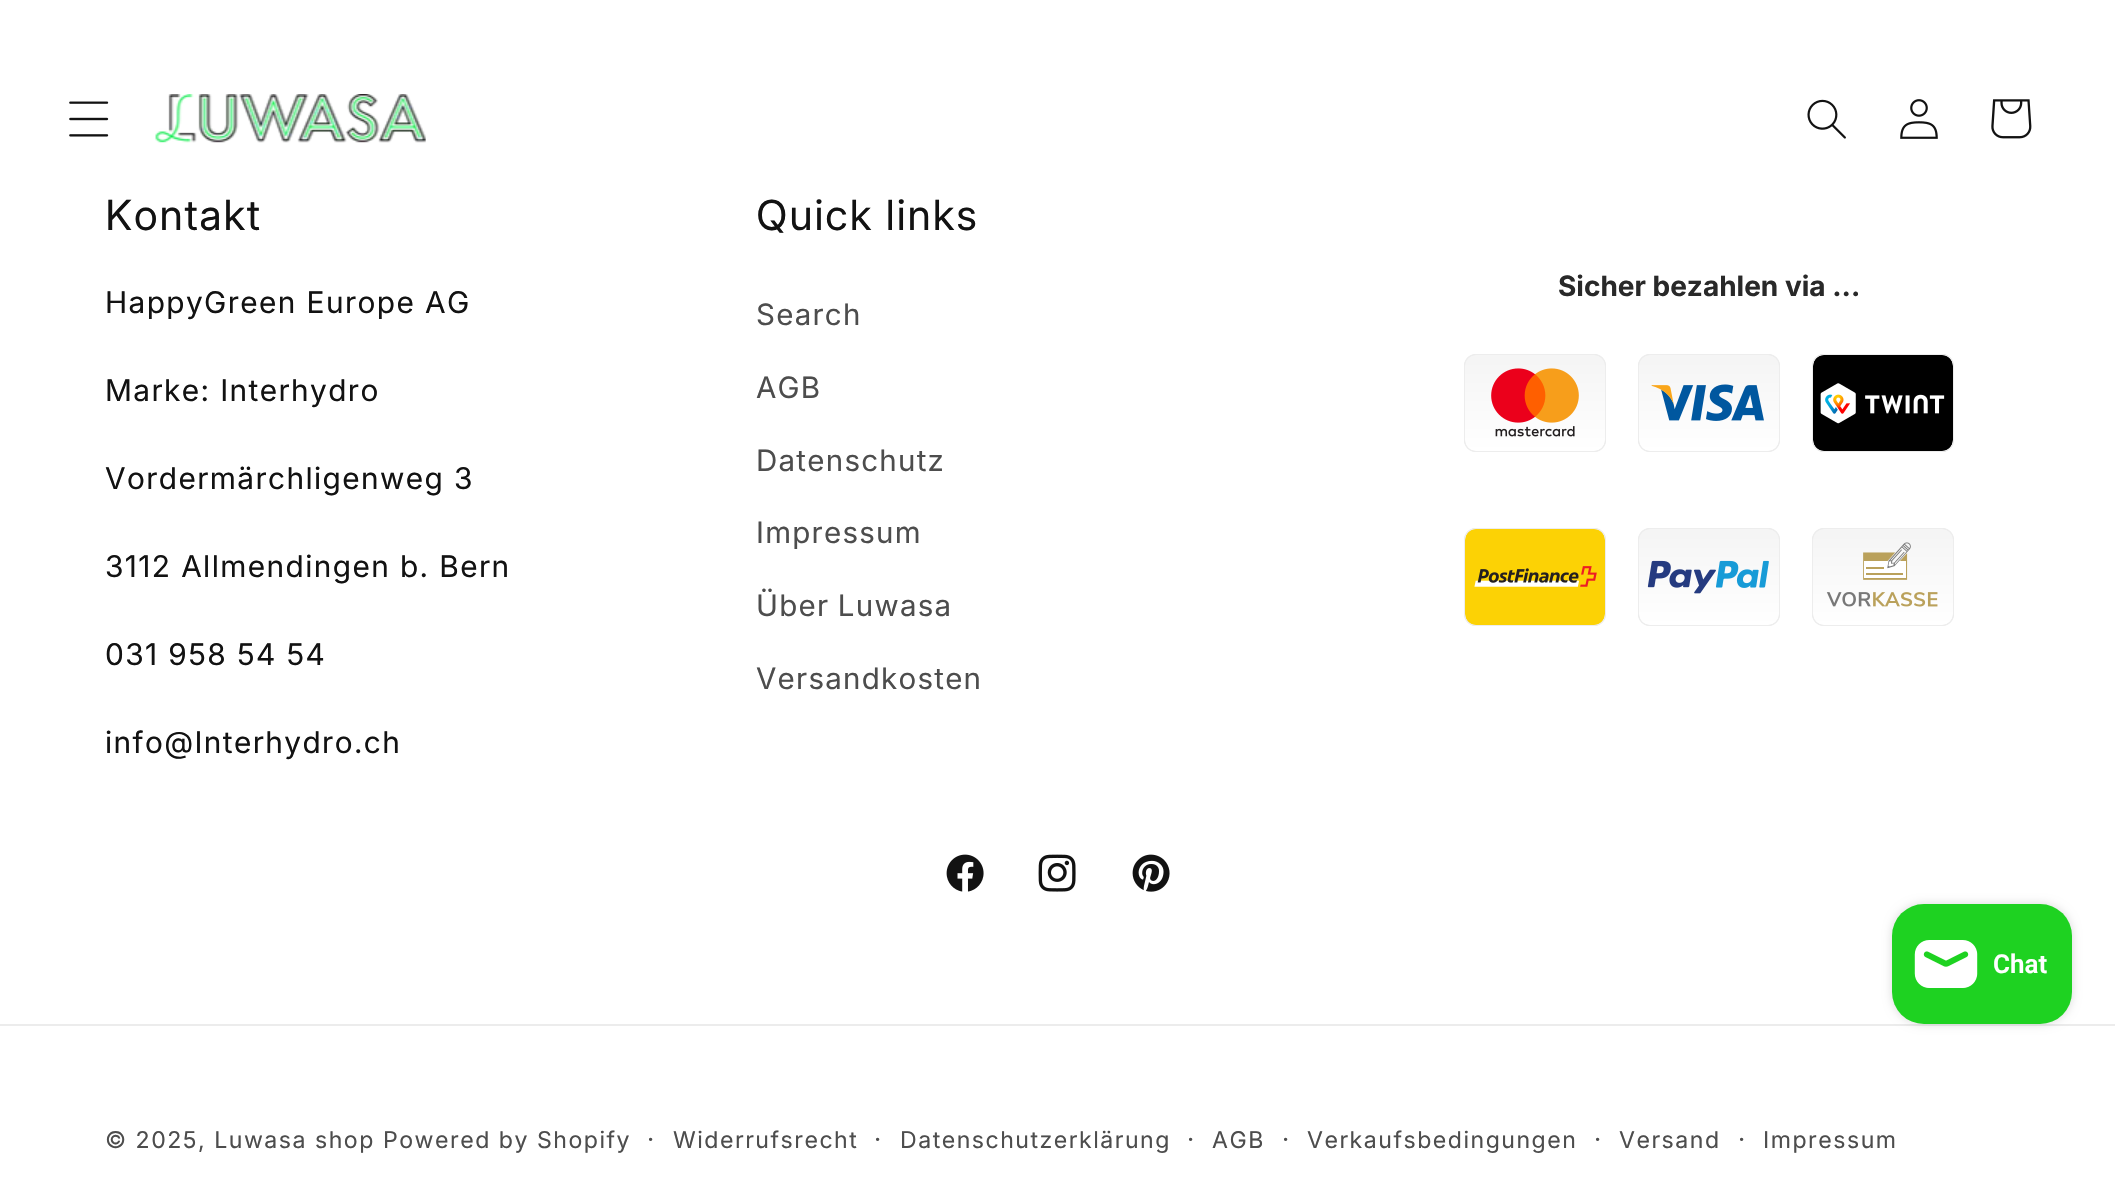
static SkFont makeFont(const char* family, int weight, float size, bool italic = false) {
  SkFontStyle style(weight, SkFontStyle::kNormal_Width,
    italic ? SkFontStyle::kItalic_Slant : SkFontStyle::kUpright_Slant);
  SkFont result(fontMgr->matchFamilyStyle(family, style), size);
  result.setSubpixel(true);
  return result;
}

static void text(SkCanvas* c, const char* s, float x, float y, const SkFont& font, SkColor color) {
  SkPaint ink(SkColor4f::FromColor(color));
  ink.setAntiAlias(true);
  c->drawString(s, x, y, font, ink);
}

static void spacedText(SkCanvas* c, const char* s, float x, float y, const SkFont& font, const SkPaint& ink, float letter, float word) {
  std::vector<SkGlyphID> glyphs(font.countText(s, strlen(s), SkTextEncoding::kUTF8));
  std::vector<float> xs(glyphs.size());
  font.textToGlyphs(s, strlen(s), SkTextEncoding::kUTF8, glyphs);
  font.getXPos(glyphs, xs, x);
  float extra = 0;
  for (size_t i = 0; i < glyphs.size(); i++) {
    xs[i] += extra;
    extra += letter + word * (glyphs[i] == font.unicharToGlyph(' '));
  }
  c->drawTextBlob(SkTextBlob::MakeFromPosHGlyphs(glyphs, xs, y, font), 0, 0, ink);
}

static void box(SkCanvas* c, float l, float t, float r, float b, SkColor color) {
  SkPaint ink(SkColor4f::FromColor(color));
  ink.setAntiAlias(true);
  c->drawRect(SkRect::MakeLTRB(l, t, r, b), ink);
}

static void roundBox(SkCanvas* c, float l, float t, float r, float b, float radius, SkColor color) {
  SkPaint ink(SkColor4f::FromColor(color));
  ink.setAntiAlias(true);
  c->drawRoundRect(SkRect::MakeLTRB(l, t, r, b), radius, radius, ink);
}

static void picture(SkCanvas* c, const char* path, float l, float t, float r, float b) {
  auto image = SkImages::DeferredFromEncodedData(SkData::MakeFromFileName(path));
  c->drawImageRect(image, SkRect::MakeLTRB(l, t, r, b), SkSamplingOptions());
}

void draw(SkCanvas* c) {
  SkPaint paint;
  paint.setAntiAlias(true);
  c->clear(0xffffffff);
  picture(c, "img_01.png", 69, 101, 109, 137);
  picture(c, "img_02.png", 155, 94, 426, 143);
  picture(c, "img_03.png", 1807, 99, 1846, 139);
  picture(c, "img_04.png", 1900, 99, 1938, 139);
  picture(c, "img_05.png", 1991, 99, 2032, 139);
  SkFont face1 = makeFont("Inter", 400, 41.5f);
  paint.setColor(0xff121212);
  spacedText(c, "Kontakt", 105, 230, face1, paint, 1.4f, 0);
  SkFont face2 = makeFont("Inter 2", 400, 29.9f);
  spacedText(c, "HappyGreen Europe AG", 105, 313, face2, paint, 1.4f, 0);
  spacedText(c, "Marke: Interhydro", 105, 401, face2, paint, 1.4f, 0);
  spacedText(c, "Vordermärchligenweg 3", 105, 489, face2, paint, 1.4f, 0);
  spacedText(c, "3112 Allmendingen b. Bern", 105, 577, face2, paint, 1.4f, 0);
  spacedText(c, "031 958 54 54", 105, 665, face2, paint, 1.4f, 0);
  spacedText(c, "info@Interhydro.ch", 105, 753, face2, paint, 1.4f, 0);
  spacedText(c, "Quick links", 756, 230, face1, paint, 1.4f, 0);
  SkFont face3 = makeFont("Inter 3", 400, 29.5f);
  paint.setColor(0xff4d4d4d);
  spacedText(c, "Search", 756, 325, face3, paint, 1.25f, 0);
  spacedText(c, "AGB", 756, 398, face3, paint, 1.25f, 0);
  spacedText(c, "Datenschutz", 756, 471, face3, paint, 1.25f, 0);
  spacedText(c, "Impressum", 756, 543, face3, paint, 1.25f, 0);
  spacedText(c, "Über Luwasa", 756, 616, face3, paint, 1.25f, -1);
  spacedText(c, "Versandkosten", 756, 689, face3, paint, 1.25f, 0);
  SkFont face4 = makeFont("Inter", 700, 28);
  text(c, "Sicher bezahlen via ...", 1558, 296, face4, 0xff292929);
  picture(c, "img_06.png", 1464, 354, 1606, 452);
  picture(c, "img_07.png", 1638, 354, 1780, 452);
  picture(c, "img_08.png", 1812, 354, 1954, 452);
  picture(c, "img_09.png", 1464, 528, 1606, 626);
  picture(c, "img_10.png", 1638, 528, 1780, 626);
  picture(c, "img_11.png", 1812, 528, 1954, 626);
  picture(c, "img_12.png", 946, 854, 984, 892);
  picture(c, "img_13.png", 1038, 854, 1076, 892);
  picture(c, "img_14.png", 1132, 854, 1170, 892);
  box(c, 0, 1024, 2115, 1026, 0xffececec);
  SkFont face5 = makeFont("Inter 3", 400, 23.1f);
  spacedText(c, "© 2025, Luwasa shop", 105, 1148, face5, paint, 1.5f, 0);
  spacedText(c, "Powered by Shopify", 383, 1148, face5, paint, 1.5f, 0);
  SkFont face6 = makeFont("Inter 3", 400, 25);
  spacedText(c, "·", 647, 1148, face6, paint, 1.5f, 0);
  spacedText(c, "Widerrufsrecht", 673, 1148, face5, paint, 1.5f, 0);
  spacedText(c, "·", 874, 1148, face6, paint, 1.5f, 0);
  spacedText(c, "Datenschutzerklärung", 900, 1148, face5, paint, 1.5f, 0);
  spacedText(c, "·", 1187, 1148, face6, paint, 1.5f, 0);
  spacedText(c, "AGB", 1212, 1148, face5, paint, 1.5f, 0);
  spacedText(c, "·", 1282, 1148, face6, paint, 1.5f, 0);
  spacedText(c, "Verkaufsbedingungen", 1307, 1148, face5, paint, 1.5f, 0);
  spacedText(c, "·", 1594, 1148, face6, paint, 1.5f, 0);
  spacedText(c, "Versand", 1619, 1148, face5, paint, 1.5f, 0);
  spacedText(c, "·", 1738, 1148, face6, paint, 1.5f, 0);
  spacedText(c, "Impressum", 1763, 1148, face5, paint, 1.5f, 0);
  paint.setColor(0x26000000);
  paint.setMaskFilter(SkMaskFilter::MakeBlur(kNormal_SkBlurStyle, 5));
  c->drawRoundRect(SkRect::MakeLTRB(1892, 904, 2072, 1024), 32, 32, paint);
  paint.setMaskFilter(nullptr);
  roundBox(c, 1892, 904, 2072, 1024, 32, 0xff1ed221);
  picture(c, "img_15.png", 1914, 940, 1978, 988);
  SkFont face7 = makeFont("Roboto", 600, 26);
  text(c, "Chat", 1993, 973, face7, 0xffffffff);
}
